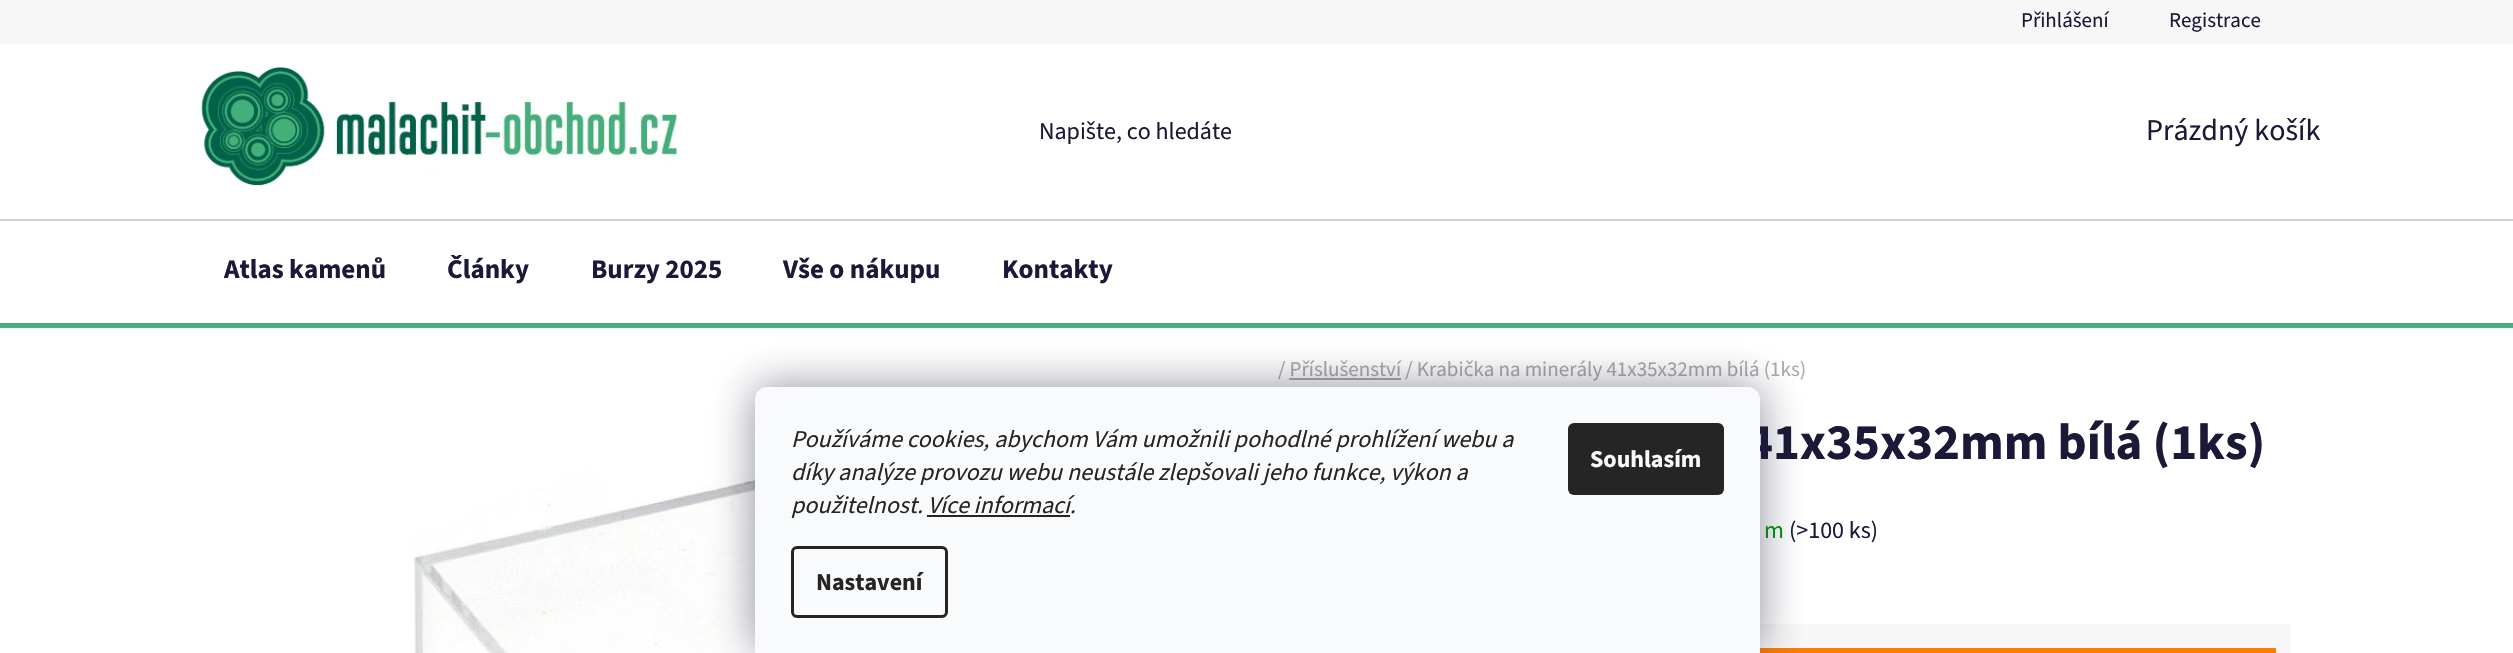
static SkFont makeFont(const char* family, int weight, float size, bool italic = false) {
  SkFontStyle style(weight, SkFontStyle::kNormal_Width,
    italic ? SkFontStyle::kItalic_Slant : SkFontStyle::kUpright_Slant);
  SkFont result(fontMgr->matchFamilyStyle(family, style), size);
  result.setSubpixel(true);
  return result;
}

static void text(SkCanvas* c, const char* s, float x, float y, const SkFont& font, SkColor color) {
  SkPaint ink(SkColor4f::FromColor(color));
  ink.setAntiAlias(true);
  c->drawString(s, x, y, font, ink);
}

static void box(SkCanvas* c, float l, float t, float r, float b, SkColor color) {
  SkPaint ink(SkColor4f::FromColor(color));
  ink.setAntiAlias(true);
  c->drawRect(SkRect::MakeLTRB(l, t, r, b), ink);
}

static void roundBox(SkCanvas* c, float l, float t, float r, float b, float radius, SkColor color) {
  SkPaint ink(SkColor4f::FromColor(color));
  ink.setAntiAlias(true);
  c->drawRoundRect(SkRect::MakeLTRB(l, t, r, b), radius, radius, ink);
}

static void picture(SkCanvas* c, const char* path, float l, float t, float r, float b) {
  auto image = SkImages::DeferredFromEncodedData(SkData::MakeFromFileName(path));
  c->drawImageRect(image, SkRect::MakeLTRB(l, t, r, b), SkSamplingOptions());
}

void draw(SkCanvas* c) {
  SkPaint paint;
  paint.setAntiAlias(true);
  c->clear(0xffffffff);
  box(c, 0, 0, 2513, 44, 0xfff7f7f7);
  SkFont face1 = makeFont("Source Sans 3", 400, 21);
  text(c, "Přihlášení", 2021, 27, face1, 0xff1a1937);
  text(c, "Registrace", 2169, 27, face1, 0xff1a1937);
  box(c, 0, 323, 2513, 328, 0xff48b07d);
  picture(c, "img_01.png", 200, 66, 678, 186);
  SkFont face2 = makeFont("Source Sans 3", 400, 24);
  text(c, "Napište, co hledáte", 1039, 139, face2, 0xff1a1937);
  SkFont face3 = makeFont("Source Sans 3", 400, 30);
  text(c, "Prázdný košík", 2146, 140, face3, 0xff1a1937);
  box(c, 0, 219, 2513, 221, 0xffcfcfcf);
  SkFont face4 = makeFont("Source Sans 3", 700, 27);
  text(c, "Atlas kamenů", 224, 278, face4, 0xff1a1937);
  text(c, "Články", 447, 278, face4, 0xff1a1937);
  text(c, "Burzy 2025", 591, 278, face4, 0xff1a1937);
  text(c, "Vše o nákupu", 783, 278, face4, 0xff1a1937);
  text(c, "Kontakty", 1002, 278, face4, 0xff1a1937);
  text(c, "/ Příslušenství / Krabička na minerály 41x35x32mm bílá (1ks)", 1278, 376, face1, 0xffaaaaaa);
  box(c, 1289, 378, 1401, 380, 0xffaaaaaa);
  picture(c, "img_02.png", 413, 448, 755, 653);
  SkFont face5 = makeFont("Source Sans 3", 700, 51);
  text(c, "41x35x32mm bílá (1ks)", 1746, 459, face5, 0xff1a1937);
  text(c, "m", 1764, 538, face2, 0xff009901);
  text(c, "(>100 ks)", 1789, 538, face2, 0xff1a1937);
  box(c, 1760, 624, 2291, 653, 0xfff7f7f7);
  box(c, 1760, 648, 2276, 653, 0xfffe7b05);
  paint.setColor(0x801b1939);
  paint.setMaskFilter(SkMaskFilter::MakeBlur(kNormal_SkBlurStyle, 22.5f));
  c->drawRoundRect(SkRect::MakeLTRB(755, 387, 1760, 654), 12, 12, paint);
  paint.setMaskFilter(nullptr);
  paint.setColor(0xfff8fafb);
  c->drawPath(SkPathBuilder().moveTo(767, 387).lineTo(1748, 387).cubicTo(1754.5f, 387, 1760, 392.5f, 1760, 399).lineTo(1760, 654).lineTo(755, 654).lineTo(755, 399).cubicTo(755, 392.5f, 760.5f, 387, 767, 387).close().detach(), paint);
  SkFont face6 = makeFont("Source Sans 3", 400, 24, true);
  text(c, "Používáme cookies, abychom Vám umožnili pohodlné prohlížení webu a", 791, 447, face6, 0xff252525);
  text(c, "díky analýze provozu webu neustále zlepšovali jeho funkce, výkon a", 791, 480, face6, 0xff252525);
  text(c, "použitelnost. Více informací.", 791, 513, face6, 0xff252525);
  box(c, 927, 515, 1070, 517, 0xff252525);
  paint.setStyle(SkPaint::kStroke_Style);
  paint.setStrokeWidth(3);
  paint.setColor(0xff252525);
  c->drawRoundRect(SkRect::MakeLTRB(792.5f, 547.5f, 946.5f, 616.5f), 4.5f, 4.5f, paint);
  SkFont face7 = makeFont("Source Sans 3", 700, 24);
  text(c, "Nastavení", 816, 590, face7, 0xff252525);
  roundBox(c, 1568, 423, 1724, 495, 6, 0xff252525);
  text(c, "Souhlasím", 1590, 467, face7, 0xfff8fafb);
}
